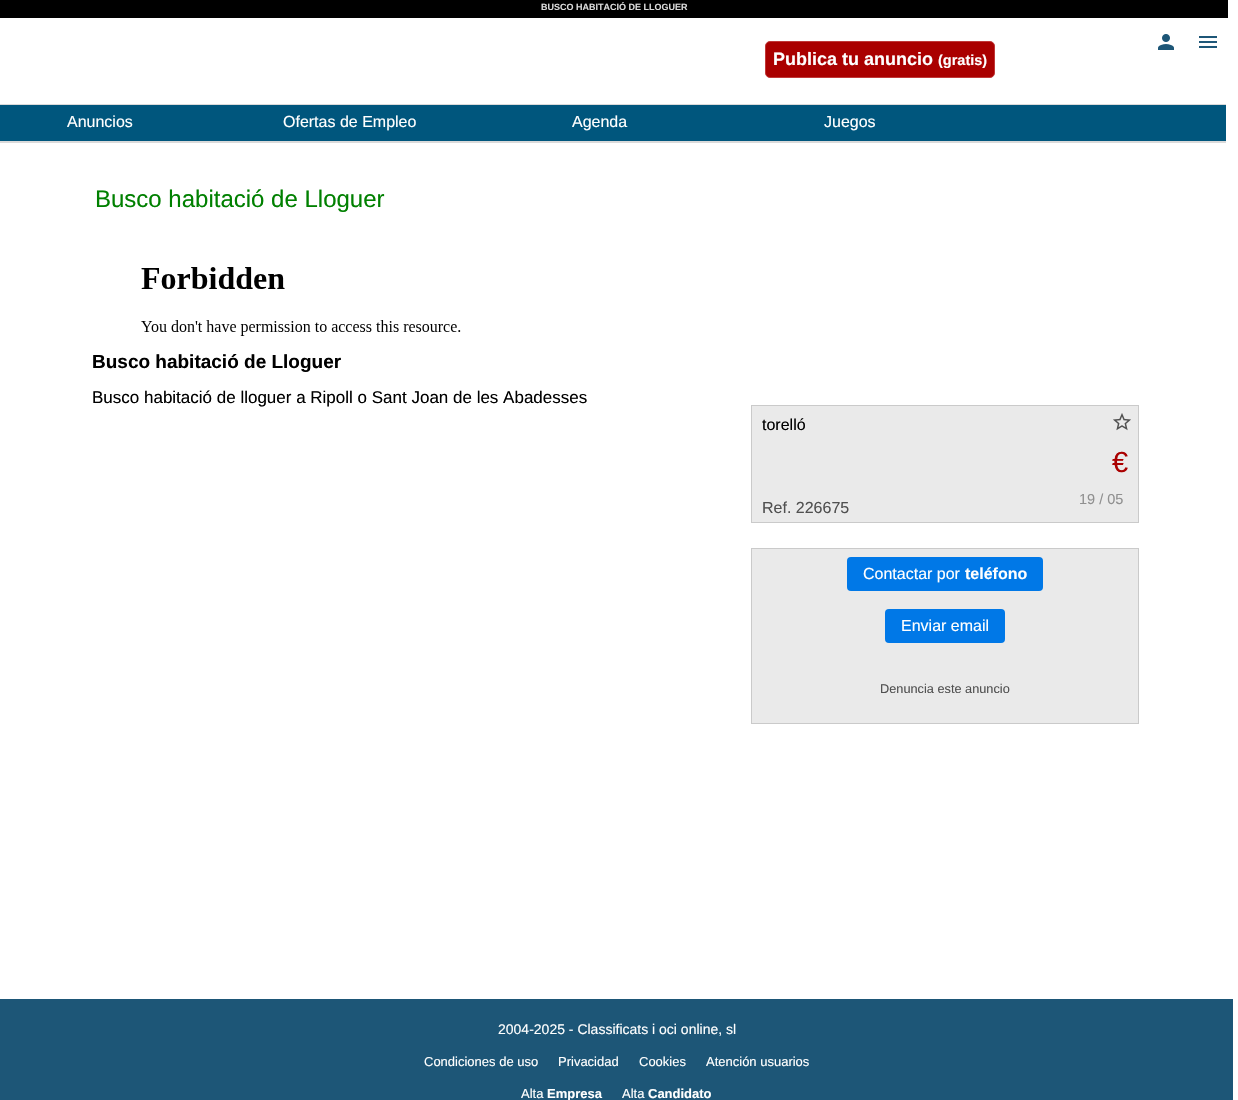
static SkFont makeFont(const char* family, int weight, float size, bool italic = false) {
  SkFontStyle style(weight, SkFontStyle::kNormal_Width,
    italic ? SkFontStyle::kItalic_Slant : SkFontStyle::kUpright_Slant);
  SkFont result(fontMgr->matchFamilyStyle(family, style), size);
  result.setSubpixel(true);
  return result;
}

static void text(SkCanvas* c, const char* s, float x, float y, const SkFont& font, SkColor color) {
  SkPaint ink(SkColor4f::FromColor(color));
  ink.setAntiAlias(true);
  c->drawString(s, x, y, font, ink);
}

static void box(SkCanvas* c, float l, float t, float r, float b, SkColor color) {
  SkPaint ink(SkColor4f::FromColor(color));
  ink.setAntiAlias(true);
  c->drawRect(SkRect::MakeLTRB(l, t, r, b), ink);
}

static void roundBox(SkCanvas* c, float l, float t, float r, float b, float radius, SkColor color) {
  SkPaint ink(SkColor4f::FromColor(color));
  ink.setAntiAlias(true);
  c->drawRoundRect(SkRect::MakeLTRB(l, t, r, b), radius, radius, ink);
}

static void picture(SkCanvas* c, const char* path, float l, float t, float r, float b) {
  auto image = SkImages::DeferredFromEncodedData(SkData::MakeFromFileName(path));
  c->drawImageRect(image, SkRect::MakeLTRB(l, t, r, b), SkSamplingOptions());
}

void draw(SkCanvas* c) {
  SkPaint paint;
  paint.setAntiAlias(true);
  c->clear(0xffffffff);
  box(c, 0, 0, 1228, 18, 0xff000000);
  SkFont face1 = makeFont("Liberation Sans", 700, 9);
  text(c, "BUSCO HABITACIÓ DE LLOGUER", 541, 10, face1, 0xffdadada);
  picture(c, "img_01.png", 1158, 34, 1174, 50);
  picture(c, "img_02.png", 1199, 36, 1217, 48);
  paint.setColor(0xffaa0000);
  c->drawRoundRect(SkRect::MakeLTRB(765.5f, 41.5f, 994.5f, 77.5f), 4.5f, 4.5f, paint);
  paint.setStyle(SkPaint::kStroke_Style);
  paint.setStrokeWidth(1);
  paint.setColor(0xffc03838);
  c->drawRoundRect(SkRect::MakeLTRB(765.5f, 41.5f, 994.5f, 77.5f), 4.5f, 4.5f, paint);
  SkFont face2 = makeFont("Liberation Sans", 700, 18);
  text(c, "Publica tu anuncio", 773, 65, face2, 0xffffffff);
  SkFont face3 = makeFont("Liberation Sans", 700, 14.5f);
  text(c, "(gratis)", 938, 65, face3, 0xffffffff);
  box(c, 0, 105, 1226, 141, 0xff00567d);
  box(c, 0, 104, 1226, 105, 0xffdadada);
  box(c, 0, 141, 1226, 143, 0xffdadada);
  SkFont face4 = makeFont("Liberation Sans", 400, 16);
  text(c, "Anuncios", 67, 127, face4, 0xffffffff);
  text(c, "Ofertas de Empleo", 283, 127, face4, 0xffffffff);
  text(c, "Agenda", 572, 127, face4, 0xffffffff);
  text(c, "Juegos", 824, 127, face4, 0xffffffff);
  SkFont face5 = makeFont("Liberation Sans", 400, 24);
  text(c, "Busco habitació de Lloguer", 95, 207, face5, 0xff008000);
  picture(c, "img_03.png", 141, 267, 461, 336);
  SkFont face6 = makeFont("Liberation Sans", 700, 19);
  text(c, "Busco habitació de Lloguer", 92, 368, face6, 0xff000000);
  SkFont face7 = makeFont("Liberation Sans", 400, 17);
  text(c, "Busco habitació de lloguer a Ripoll o Sant Joan de les Abadesses", 92, 403, face7, 0xff000000);
  paint.setStyle(SkPaint::kFill_Style);
  paint.setColor(0xffeaeaea);
  c->drawRect(SkRect::MakeLTRB(751.5f, 405.5f, 1138.5f, 522.5f), paint);
  paint.setStyle(SkPaint::kStroke_Style);
  paint.setColor(0xffcacaca);
  c->drawRect(SkRect::MakeLTRB(751.5f, 405.5f, 1138.5f, 522.5f), paint);
  text(c, "torelló", 762, 430, face4, 0xff000000);
  picture(c, "img_04.png", 1113, 413, 1131, 431);
  SkFont face8 = makeFont("Liberation Sans", 400, 29);
  text(c, "€", 1112, 472, face8, 0xffaa0000);
  SkFont face9 = makeFont("Liberation Sans", 400, 14.5f);
  text(c, "19 / 05", 1079, 504, face9, 0xff909090);
  text(c, "Ref. 226675", 762, 513, face4, 0xff505050);
  paint.setStyle(SkPaint::kFill_Style);
  paint.setColor(0xffeaeaea);
  c->drawRect(SkRect::MakeLTRB(751.5f, 548.5f, 1138.5f, 723.5f), paint);
  paint.setStyle(SkPaint::kStroke_Style);
  paint.setColor(0xffcacaca);
  c->drawRect(SkRect::MakeLTRB(751.5f, 548.5f, 1138.5f, 723.5f), paint);
  roundBox(c, 847, 557, 1043, 591, 4, 0xff0078e7);
  text(c, "Contactar por", 863, 579, face4, 0xffffffff);
  SkFont face10 = makeFont("Liberation Sans", 700, 16);
  text(c, "teléfono", 965, 579, face10, 0xffffffff);
  roundBox(c, 885, 609, 1005, 643, 4, 0xff0078e7);
  text(c, "Enviar email", 901, 631, face4, 0xffffffff);
  SkFont face11 = makeFont("Liberation Sans", 400, 12.75f);
  text(c, "Denuncia este anuncio", 880, 693, face11, 0xff505050);
  box(c, 0, 999, 1233, 1100, 0xff1d5677);
  SkFont face12 = makeFont("Liberation Sans", 400, 14);
  text(c, "2004-2025 - Classificats i oci online, sl", 498, 1034, face12, 0xffffffff);
  SkFont face13 = makeFont("Liberation Sans", 400, 13);
  text(c, "Condiciones de uso", 424, 1066, face13, 0xffffffff);
  text(c, "Privacidad", 558, 1066, face13, 0xffffffff);
  text(c, "Cookies", 639, 1066, face13, 0xffffffff);
  text(c, "Atención usuarios", 706, 1066, face13, 0xffffffff);
  text(c, "Alta", 521, 1098, face13, 0xffffffff);
  SkFont face14 = makeFont("Liberation Sans", 700, 13);
  text(c, "Empresa", 547, 1098, face14, 0xffffffff);
  text(c, "Alta", 622, 1098, face13, 0xffffffff);
  text(c, "Candidato", 648, 1098, face14, 0xffffffff);
}
